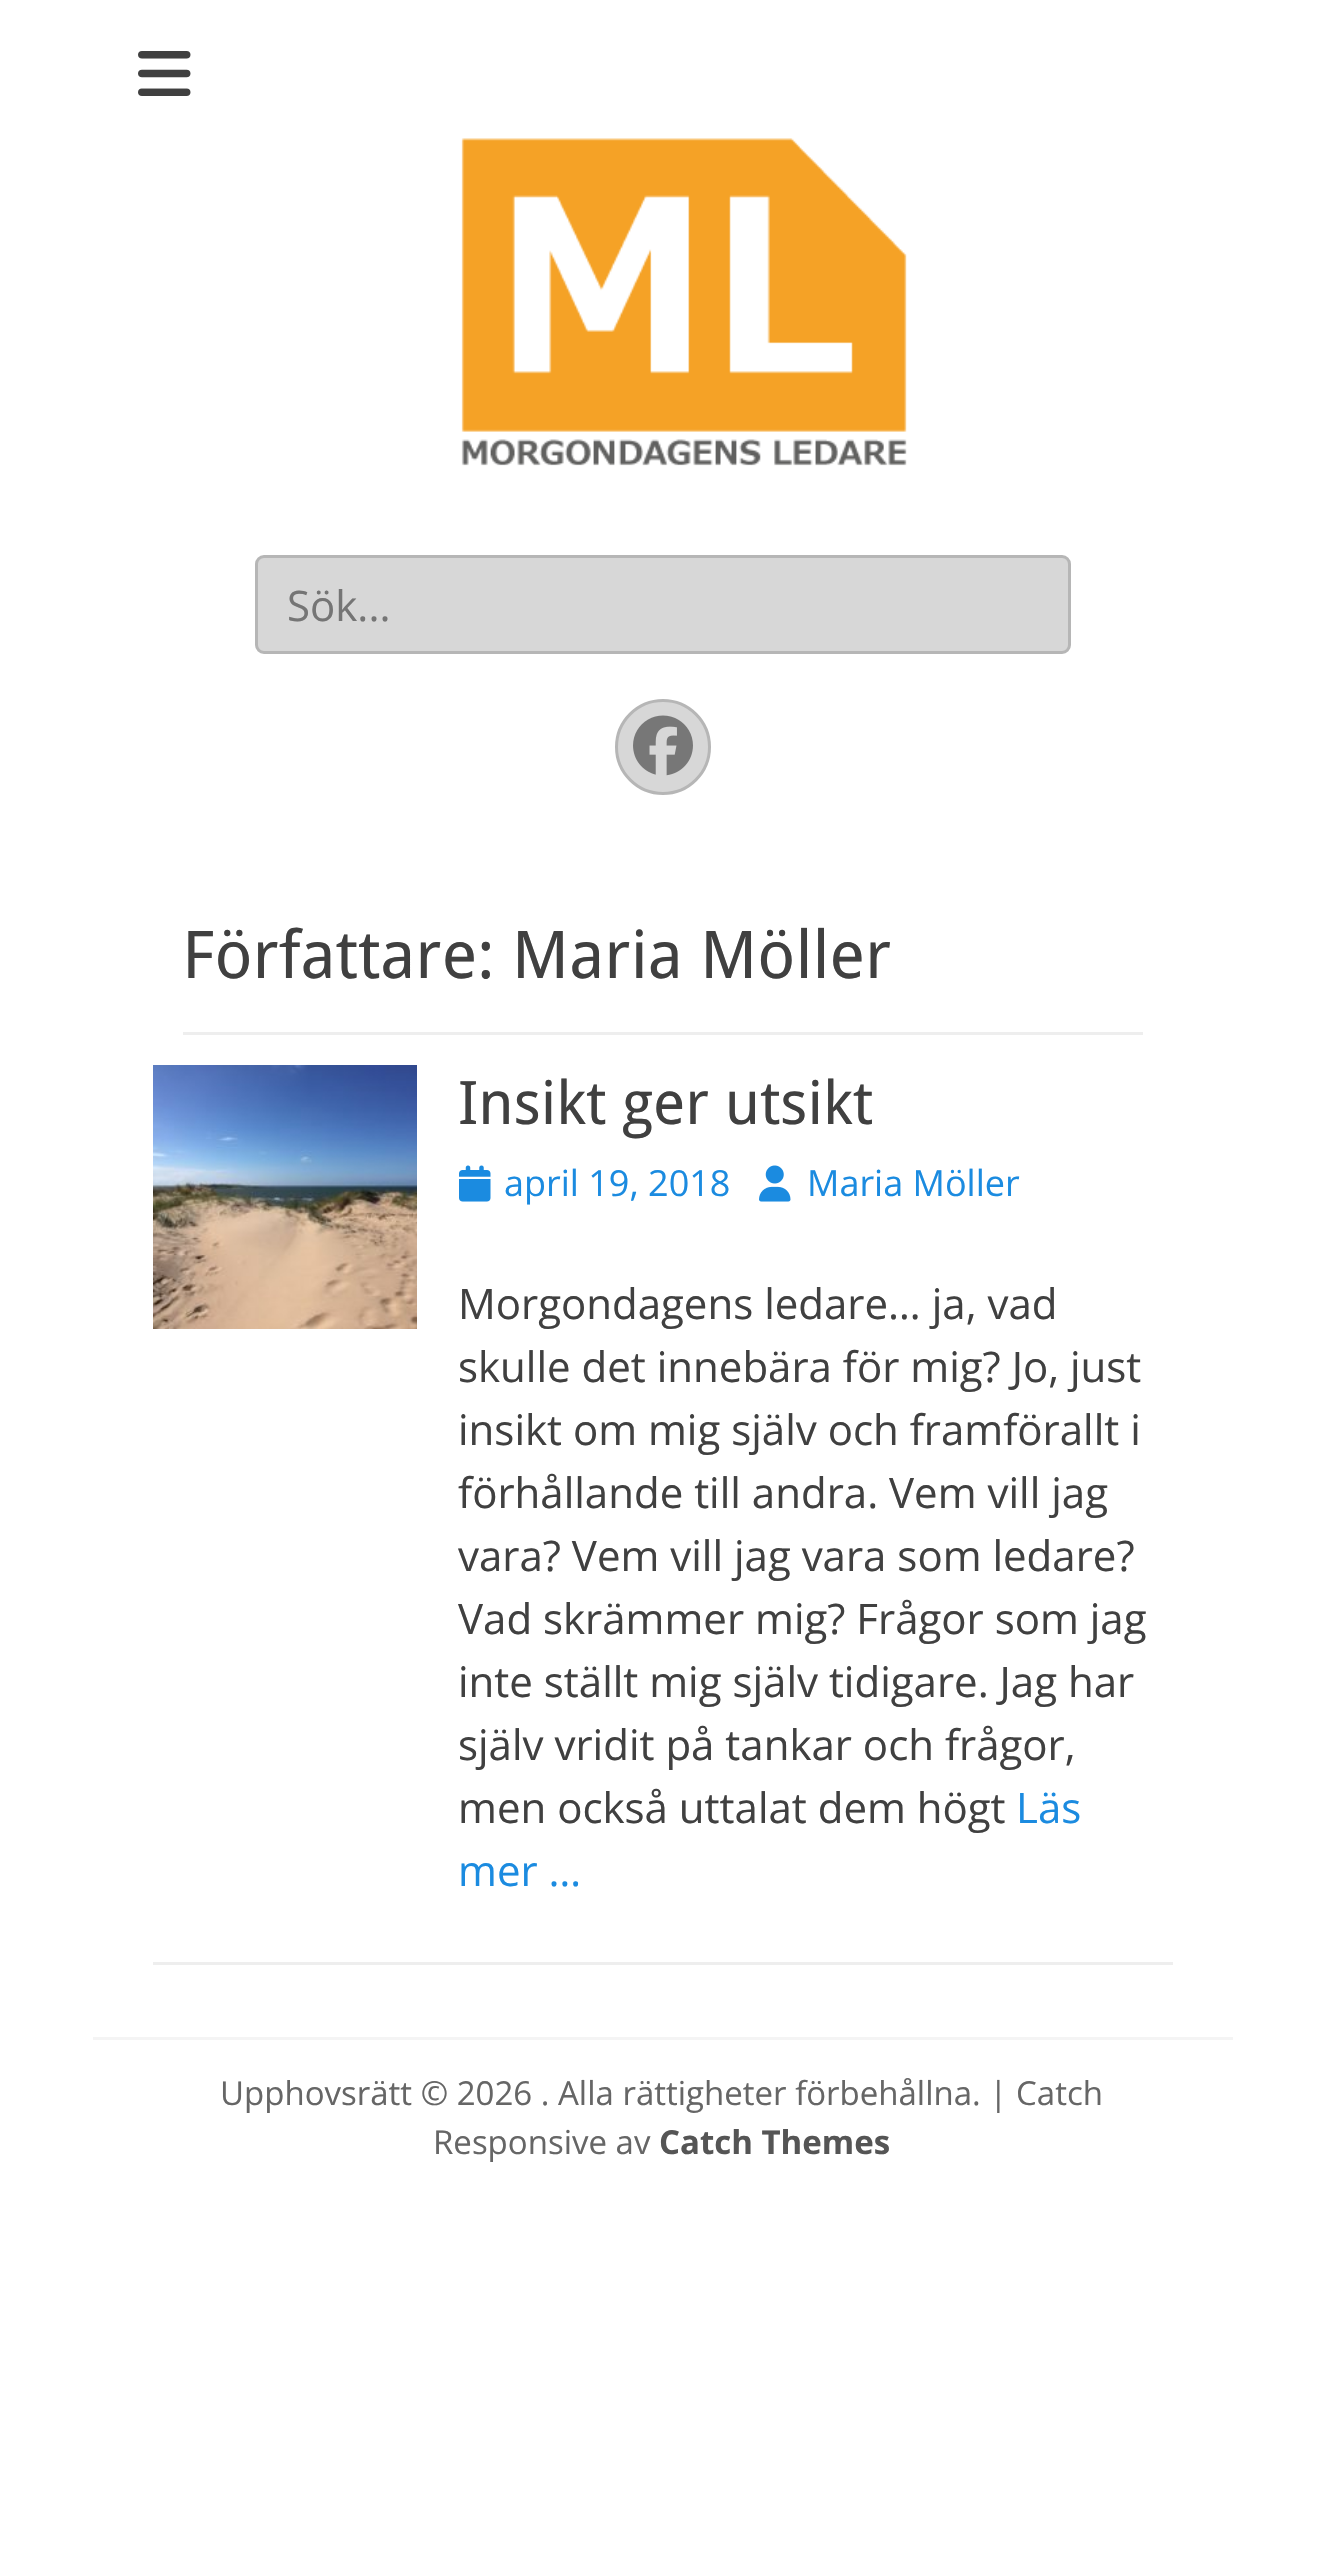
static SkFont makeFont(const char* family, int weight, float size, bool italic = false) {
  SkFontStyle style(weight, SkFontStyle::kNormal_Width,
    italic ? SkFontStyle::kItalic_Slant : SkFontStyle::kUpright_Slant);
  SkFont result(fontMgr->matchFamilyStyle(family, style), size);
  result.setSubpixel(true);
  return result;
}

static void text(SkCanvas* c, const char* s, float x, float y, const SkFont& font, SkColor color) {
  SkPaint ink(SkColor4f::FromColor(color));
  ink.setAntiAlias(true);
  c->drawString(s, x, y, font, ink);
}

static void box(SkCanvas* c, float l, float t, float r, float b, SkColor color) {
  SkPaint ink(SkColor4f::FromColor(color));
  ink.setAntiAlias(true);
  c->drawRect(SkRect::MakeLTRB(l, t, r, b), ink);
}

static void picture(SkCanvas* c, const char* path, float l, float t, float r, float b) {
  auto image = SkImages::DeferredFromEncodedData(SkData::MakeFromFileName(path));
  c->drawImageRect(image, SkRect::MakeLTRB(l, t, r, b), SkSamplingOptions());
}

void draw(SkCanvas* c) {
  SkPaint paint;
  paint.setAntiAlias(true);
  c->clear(0xffffffff);
  picture(c, "img_01.png", 138, 51, 191, 96);
  picture(c, "img_02.png", 461, 138, 907, 466);
  paint.setColor(0xffd7d7d7);
  c->drawRoundRect(SkRect::MakeLTRB(256.5f, 556.5f, 1069.5f, 652.5f), 7.5f, 7.5f, paint);
  paint.setStyle(SkPaint::kStroke_Style);
  paint.setStrokeWidth(3);
  paint.setColor(0xffb6b6b6);
  c->drawRoundRect(SkRect::MakeLTRB(256.5f, 556.5f, 1069.5f, 652.5f), 7.5f, 7.5f, paint);
  SkFont face1 = makeFont("Open Sans", 400, 42);
  text(c, "Sök...", 287, 621, face1, 0xff757575);
  paint.setStyle(SkPaint::kFill_Style);
  paint.setColor(0xffd7d7d7);
  c->drawCircle(663, 747, 46.5f, paint);
  paint.setStyle(SkPaint::kStroke_Style);
  paint.setColor(0xffb6b6b6);
  c->drawCircle(663, 747, 46.5f, paint);
  picture(c, "img_03.png", 633, 715, 693, 776);
  box(c, 183, 1032, 1143, 1035, 0xffeeeeee);
  SkFont face2 = makeFont("Droid Sans", 400, 66);
  text(c, "Författare: Maria Möller", 182, 978, face2, 0xff404040);
  box(c, 153, 1962, 1173, 1965, 0xffeeeeee);
  picture(c, "img_04.png", 153, 1065, 417, 1329);
  SkFont face3 = makeFont("Droid Sans", 400, 60);
  text(c, "Insikt ger utsikt", 458, 1124, face3, 0xff404040);
  picture(c, "img_05.png", 459, 1165, 491, 1202);
  SkFont face4 = makeFont("Open Sans", 400, 36);
  text(c, "april 19, 2018", 504, 1196, face4, 0xff1b8be0);
  picture(c, "img_06.png", 759, 1165, 791, 1202);
  text(c, "Maria Möller", 807, 1196, face4, 0xff1b8be0);
  text(c, "Morgondagens ledare… ja, vad", 458, 1319, face1, 0xff404040);
  text(c, "skulle det innebära för mig? Jo, just", 458, 1382, face1, 0xff404040);
  text(c, "insikt om mig själv och framförallt i", 458, 1445, face1, 0xff404040);
  text(c, "förhållande till andra. Vem vill jag", 458, 1508, face1, 0xff404040);
  text(c, "vara? Vem vill jag vara som ledare?", 458, 1571, face1, 0xff404040);
  text(c, "Vad skrämmer mig? Frågor som jag", 458, 1634, face1, 0xff404040);
  text(c, "inte ställt mig själv tidigare. Jag har", 458, 1697, face1, 0xff404040);
  text(c, "själv vridit på tankar och frågor,", 458, 1760, face1, 0xff404040);
  text(c, "men också uttalat dem högt", 458, 1823, face1, 0xff404040);
  text(c, "Läs", 1016, 1823, face1, 0xff1b8be0);
  text(c, "mer …", 458, 1886, face1, 0xff1b8be0);
  box(c, 93, 2037, 1233, 2040, 0xfff4f4f4);
  SkFont face5 = makeFont("Open Sans", 400, 33);
  text(c, "Upphovsrätt © 2026 . Alla rättigheter förbehållna. | Catch", 220, 2105, face5, 0xff666666);
  text(c, "Responsive av", 433, 2154, face5, 0xff666666);
  SkFont face6 = makeFont("Open Sans", 700, 33);
  text(c, "Catch Themes", 659, 2154, face6, 0xff555555);
}
